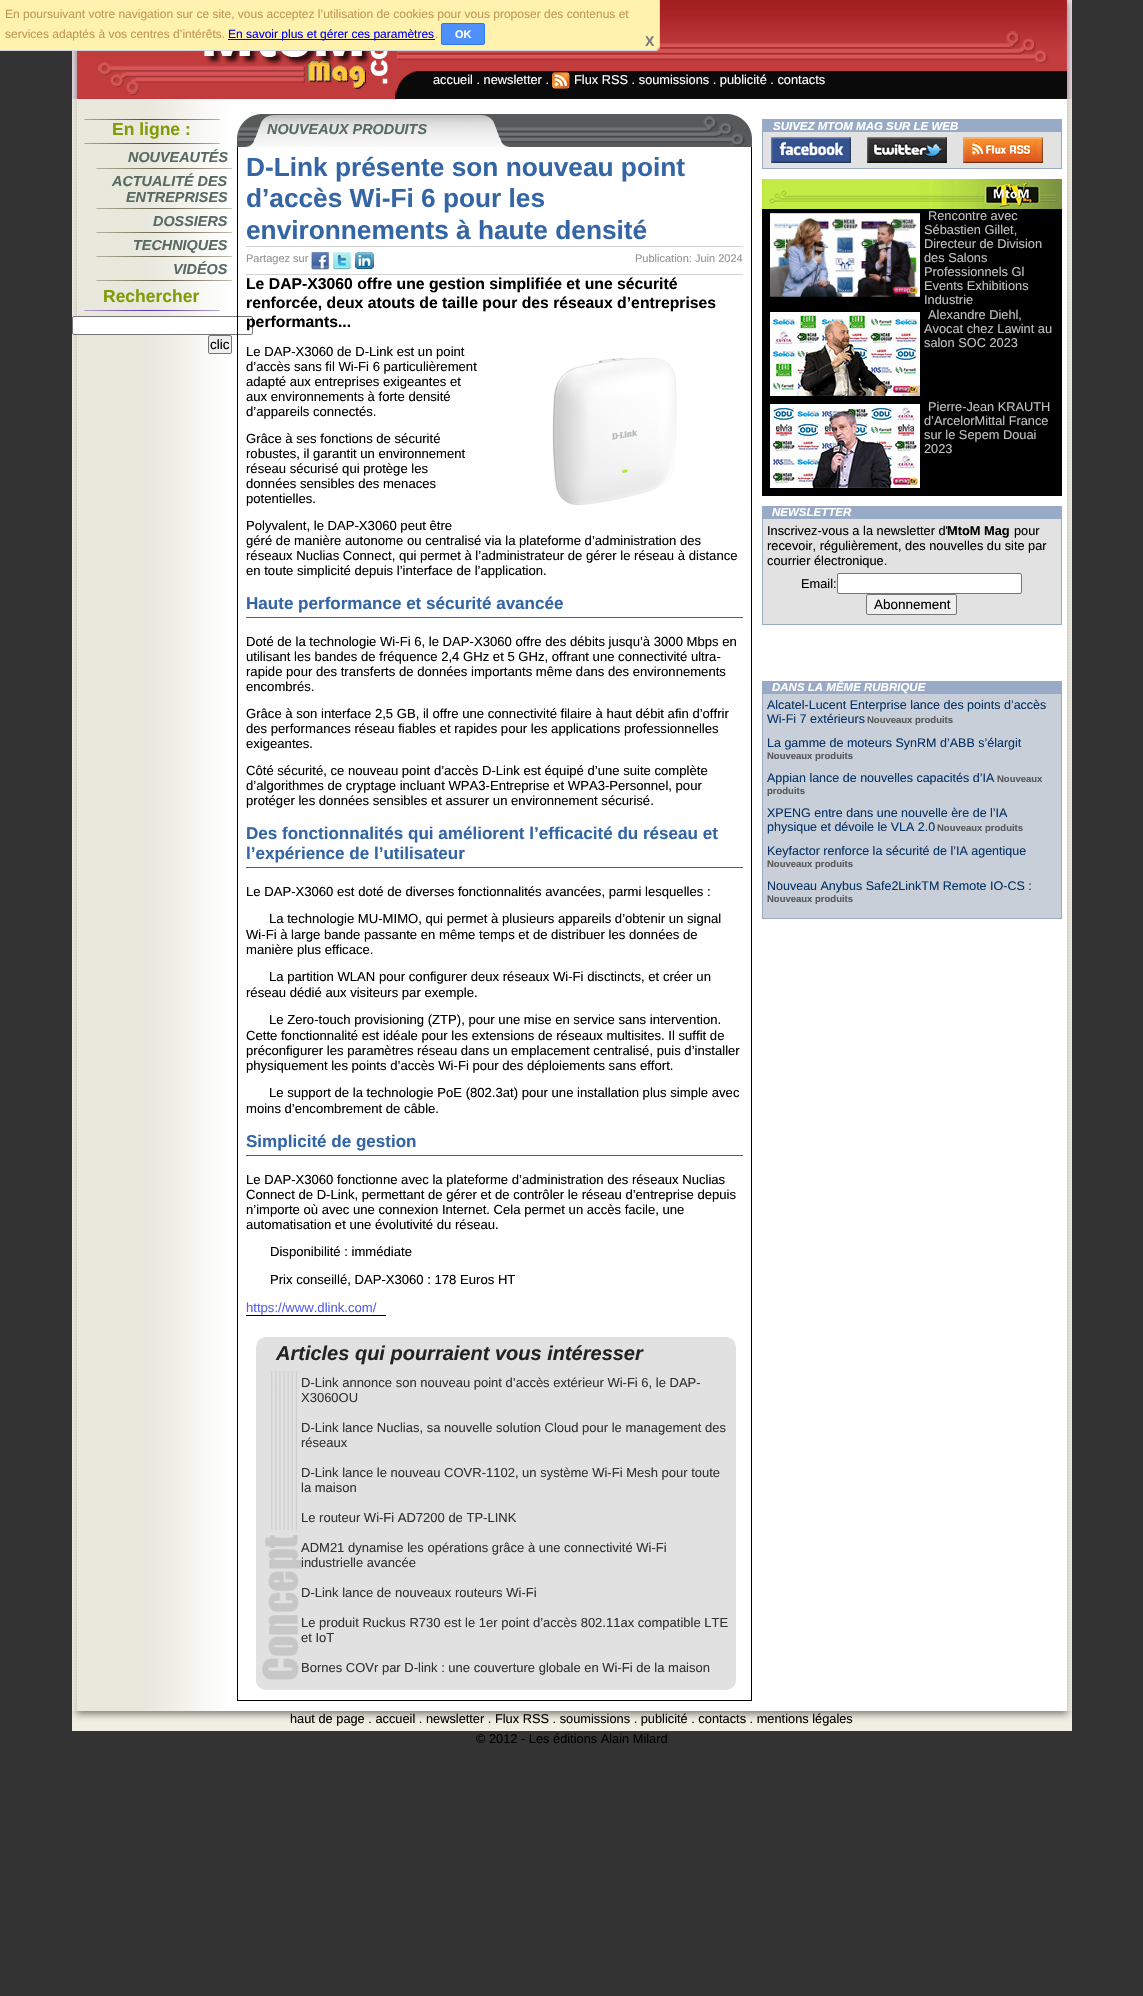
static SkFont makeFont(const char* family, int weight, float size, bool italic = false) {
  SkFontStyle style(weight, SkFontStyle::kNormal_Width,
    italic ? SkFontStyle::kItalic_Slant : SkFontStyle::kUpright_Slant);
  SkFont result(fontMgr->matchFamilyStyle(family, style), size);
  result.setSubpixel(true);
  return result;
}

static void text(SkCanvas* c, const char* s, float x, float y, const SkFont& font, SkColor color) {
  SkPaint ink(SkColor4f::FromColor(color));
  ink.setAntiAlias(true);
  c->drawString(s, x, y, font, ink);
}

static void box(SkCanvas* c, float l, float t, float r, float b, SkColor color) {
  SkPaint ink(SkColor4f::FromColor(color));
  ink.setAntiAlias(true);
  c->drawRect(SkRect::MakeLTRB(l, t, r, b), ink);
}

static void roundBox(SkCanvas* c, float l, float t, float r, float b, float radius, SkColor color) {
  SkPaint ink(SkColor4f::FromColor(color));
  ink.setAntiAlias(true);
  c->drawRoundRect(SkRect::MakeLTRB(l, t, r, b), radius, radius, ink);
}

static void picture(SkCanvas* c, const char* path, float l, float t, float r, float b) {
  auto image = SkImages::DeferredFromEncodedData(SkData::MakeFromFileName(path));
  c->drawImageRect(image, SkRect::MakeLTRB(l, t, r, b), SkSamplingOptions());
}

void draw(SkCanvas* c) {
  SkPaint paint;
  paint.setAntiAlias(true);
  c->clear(0xff333333);
  picture(c, "img_01.png", 72, 0, 1072, 99);
  paint.setColor(0xfffff1ae);
  c->drawPath(SkPathBuilder().moveTo(0, 0).lineTo(659, 0).lineTo(659, 47).cubicTo(659, 48.5f, 657.5f, 50, 656, 50).lineTo(0, 50).close().detach(), paint);
  paint.setColor(0xffd2d6db);
  c->drawPath(SkPathBuilder(SkPathFillType::kEvenOdd).moveTo(0, 0).lineTo(660, 0).lineTo(660, 47).cubicTo(660, 49, 658, 51, 656, 51).lineTo(0, 51).close().moveTo(0, 0).lineTo(659, 0).lineTo(659, 47).cubicTo(659, 49, 658, 50, 656, 50).lineTo(0, 50).close().detach(), paint);
  SkFont face1 = makeFont("Liberation Sans", 400, 12);
  text(c, "En poursuivant votre navigation sur ce site, vous acceptez l’utilisation de cookies pour vous proposer des contenus et", 5, 18, face1, 0xffc09853);
  text(c, "services adaptés à vos centres d’intérêts.", 5, 38, face1, 0xffc09853);
  box(c, 228, 39, 435, 40, 0xff0000ee);
  text(c, "En savoir plus et gérer ces paramètres", 228, 38, face1, 0xff0000ee);
  text(c, ".", 435, 38, face1, 0xffc09853);
  paint.setColor(0xff4d90fe);
  c->drawRoundRect(SkRect::MakeLTRB(441.5f, 23.5f, 484.5f, 44.5f), 1.5f, 1.5f, paint);
  paint.setStyle(SkPaint::kStroke_Style);
  paint.setStrokeWidth(1);
  paint.setColor(0xff3079ed);
  c->drawRoundRect(SkRect::MakeLTRB(441.5f, 23.5f, 484.5f, 44.5f), 1.5f, 1.5f, paint);
  SkFont face2 = makeFont("Liberation Sans", 700, 11);
  text(c, "OK", 455, 38, face2, 0xffffffff);
  SkFont face3 = makeFont("Liberation Sans", 700, 14);
  text(c, "X", 645, 46, face3, 0xff747b83);
  SkFont face4 = makeFont("Liberation Sans", 400, 12.8f);
  text(c, "accueil . newsletter .", 433, 84, face4, 0xffffffff);
  picture(c, "img_02.png", 552, 72, 570, 89);
  text(c, "Flux RSS . soumissions . publicité . contacts", 574, 84, face4, 0xffffffff);
  picture(c, "img_03.png", 72, 99, 1072, 1711);
  picture(c, "img_04.png", 84, 119, 220, 120);
  picture(c, "img_04.png", 84, 143, 220, 144);
  SkFont face5 = makeFont("Liberation Sans", 700, 17.5f);
  text(c, "En ligne :", 112, 135, face5, 0xff809c07);
  picture(c, "img_05.png", 96, 168, 232, 169);
  SkFont face6 = makeFont("Liberation Sans", 700, 14.4f, true);
  text(c, "NOUVEAUTÉS", 128, 162, face6, 0xff566a62);
  picture(c, "img_05.png", 96, 208, 232, 209);
  text(c, "ACTUALITÉ DES", 112, 186, face6, 0xff566a62);
  text(c, "ENTREPRISES", 126, 202, face6, 0xff566a62);
  picture(c, "img_05.png", 96, 232, 232, 233);
  text(c, "DOSSIERS", 153, 226, face6, 0xff566a62);
  picture(c, "img_05.png", 96, 256, 232, 257);
  text(c, "TECHNIQUES", 133, 250, face6, 0xff566a62);
  picture(c, "img_05.png", 96, 280, 232, 281);
  text(c, "VIDÉOS", 173, 274, face6, 0xff566a62);
  picture(c, "img_04.png", 84, 310, 220, 311);
  text(c, "Rechercher", 103, 302, face5, 0xff809c07);
  paint.setStyle(SkPaint::kFill_Style);
  paint.setColor(0xffffffff);
  c->drawRoundRect(SkRect::MakeLTRB(72.5f, 316.5f, 252.5f, 334.5f), 1.5f, 1.5f, paint);
  paint.setStyle(SkPaint::kStroke_Style);
  paint.setColor(0xff767676);
  c->drawRoundRect(SkRect::MakeLTRB(72.5f, 316.5f, 252.5f, 334.5f), 1.5f, 1.5f, paint);
  paint.setStyle(SkPaint::kFill_Style);
  paint.setColor(0xffefefef);
  c->drawRoundRect(SkRect::MakeLTRB(208.5f, 335.5f, 231.5f, 353.5f), 1.5f, 1.5f, paint);
  paint.setStyle(SkPaint::kStroke_Style);
  paint.setColor(0xff767676);
  c->drawRoundRect(SkRect::MakeLTRB(208.5f, 335.5f, 231.5f, 353.5f), 1.5f, 1.5f, paint);
  SkFont face7 = makeFont("Liberation Sans", 400, 13.5f);
  text(c, "clic", 210, 349, face7, 0xff000000);
  picture(c, "img_06.png", 237, 114, 752, 147);
  text(c, "NOUVEAUX PRODUITS", 267, 134, face6, 0xff566a62);
  box(c, 751, 147, 752, 1701, 0xff000000);
  box(c, 237, 1700, 752, 1701, 0xff000000);
  box(c, 237, 147, 238, 1701, 0xff000000);
  SkFont face8 = makeFont("Liberation Sans", 700, 26.25f);
  text(c, "D-Link présente son nouveau point", 246, 176, face8, 0xff3465a4);
  text(c, "d’accès Wi-Fi 6 pour les", 246, 207, face8, 0xff3465a4);
  text(c, "environnements à haute densité", 246, 239, face8, 0xff3465a4);
  box(c, 246, 246, 743, 247, 0xffd3d3d3);
  box(c, 246, 274, 743, 275, 0xffd3d3d3);
  SkFont face9 = makeFont("Liberation Sans", 400, 11);
  text(c, "Partagez sur", 246, 262, face9, 0xff939393);
  picture(c, "img_07.png", 311, 252, 329, 270);
  picture(c, "img_08.png", 333, 252, 351, 270);
  picture(c, "img_09.png", 355, 252, 374, 269);
  text(c, "Publication: Juin 2024", 635, 262, face9, 0xff939393);
  SkFont face10 = makeFont("Liberation Sans", 700, 15.75f);
  text(c, "Le DAP-X3060 offre une gestion simplifiée et une sécurité", 246, 289, face10, 0xff000000);
  text(c, "renforcée, deux atouts de taille pour des réseaux d’entreprises", 246, 308, face10, 0xff000000);
  text(c, "performants...", 246, 327, face10, 0xff000000);
  SkFont face11 = makeFont("Liberation Sans", 400, 13.1f);
  text(c, "Le DAP-X3060 de D-Link est un point", 246, 356, face11, 0xff000000);
  text(c, "d’accès sans fil Wi-Fi 6 particulièrement", 246, 371, face11, 0xff000000);
  picture(c, "img_10.png", 552, 358, 677, 505);
  text(c, "adapté aux entreprises exigeantes et", 246, 386, face11, 0xff000000);
  text(c, "aux environnements à forte densité", 246, 401, face11, 0xff000000);
  text(c, "d’appareils connectés.", 246, 416, face11, 0xff000000);
  text(c, "Grâce à ses fonctions de sécurité", 246, 443, face11, 0xff000000);
  text(c, "robustes, il garantit un environnement", 246, 458, face11, 0xff000000);
  text(c, "réseau sécurisé qui protège les", 246, 473, face11, 0xff000000);
  text(c, "données sensibles des menaces", 246, 488, face11, 0xff000000);
  text(c, "potentielles.", 246, 503, face11, 0xff000000);
  text(c, "Polyvalent, le DAP-X3060 peut être", 246, 530, face11, 0xff000000);
  text(c, "géré de manière autonome ou centralisé via la plateforme d’administration des", 246, 545, face11, 0xff000000);
  text(c, "réseaux Nuclias Connect, qui permet à l’administrateur de gérer le réseau à distance", 246, 560, face11, 0xff000000);
  text(c, "en toute simplicité depuis l’interface de l’application.", 246, 575, face11, 0xff000000);
  box(c, 246, 617, 743, 618, 0xff3465a4);
  SkFont face12 = makeFont("Liberation Sans", 700, 17.05f);
  text(c, "Haute performance et sécurité avancée", 246, 609, face12, 0xff3465a4);
  text(c, "Doté de la technologie Wi-Fi 6, le DAP-X3060 offre des débits jusqu’à 3000 Mbps en", 246, 646, face11, 0xff000000);
  text(c, "utilisant les bandes de fréquence 2,4 GHz et 5 GHz, offrant une connectivité ultra-", 246, 661, face11, 0xff000000);
  text(c, "rapide pour des transferts de données importants même dans des environnements", 246, 676, face11, 0xff000000);
  text(c, "encombrés.", 246, 691, face11, 0xff000000);
  text(c, "Grâce à son interface 2,5 GB, il offre une connectivité filaire à haut débit afin d’offrir", 246, 718, face11, 0xff000000);
  text(c, "des performances réseau fiables et rapides pour les applications professionnelles", 246, 733, face11, 0xff000000);
  text(c, "exigeantes.", 246, 748, face11, 0xff000000);
  text(c, "Côté sécurité, ce nouveau point d’accès D-Link est équipé d’une suite complète", 246, 775, face11, 0xff000000);
  text(c, "d’algorithmes de cryptage incluant WPA3-Entreprise et WPA3-Personnel, pour", 246, 790, face11, 0xff000000);
  text(c, "protéger les données sensibles et assurer un environnement sécurisé.", 246, 805, face11, 0xff000000);
  box(c, 246, 867, 743, 868, 0xff3465a4);
  text(c, "Des fonctionnalités qui améliorent l’efficacité du réseau et", 246, 839, face12, 0xff3465a4);
  text(c, "l’expérience de l’utilisateur", 246, 859, face12, 0xff3465a4);
  text(c, "Le DAP-X3060 est doté de diverses fonctionnalités avancées, parmi lesquelles :", 246, 896, face11, 0xff000000);
  text(c, "La technologie MU-MIMO, qui permet à plusieurs appareils d’obtenir un signal", 269, 923, face11, 0xff000000);
  text(c, "Wi-Fi à large bande passante en même temps et de distribuer les données de", 246, 939, face11, 0xff000000);
  text(c, "manière plus efficace.", 246, 954, face11, 0xff000000);
  text(c, "La partition WLAN pour configurer deux réseaux Wi-Fi disctincts, et créer un", 269, 981, face11, 0xff000000);
  text(c, "réseau dédié aux visiteurs par exemple.", 246, 997, face11, 0xff000000);
  text(c, "Le Zero-touch provisioning (ZTP), pour une mise en service sans intervention.", 269, 1024, face11, 0xff000000);
  text(c, "Cette fonctionnalité est idéale pour les extensions de réseaux multisites. Il suffit de", 246, 1040, face11, 0xff000000);
  text(c, "préconfigurer les paramètres réseau dans un emplacement centralisé, puis d’installer", 246, 1055, face11, 0xff000000);
  text(c, "physiquement les points d’accès Wi-Fi pour des déploiements sans effort.", 246, 1070, face11, 0xff000000);
  text(c, "Le support de la technologie PoE (802.3at) pour une installation plus simple avec", 269, 1097, face11, 0xff000000);
  text(c, "moins d’encombrement de câble.", 246, 1113, face11, 0xff000000);
  box(c, 246, 1155, 743, 1156, 0xff3465a4);
  text(c, "Simplicité de gestion", 246, 1147, face12, 0xff3465a4);
  text(c, "Le DAP-X3060 fonctionne avec la plateforme d’administration des réseaux Nuclias", 246, 1184, face11, 0xff000000);
  text(c, "Connect de D-Link, permettant de gérer et de contrôler le réseau d’entreprise depuis", 246, 1199, face11, 0xff000000);
  text(c, "n’importe où avec une connexion Internet. Cela permet un accès facile, une", 246, 1214, face11, 0xff000000);
  text(c, "automatisation et une évolutivité du réseau.", 246, 1229, face11, 0xff000000);
  text(c, "Disponibilité : immédiate", 270, 1256, face11, 0xff000000);
  text(c, "Prix conseillé, DAP-X3060 : 178 Euros HT", 270, 1284, face11, 0xff000000);
  text(c, "https://www.dlink.com/", 246, 1312, face11, 0xff5662df);
  box(c, 246, 1315, 386, 1316, 0xff000000);
  roundBox(c, 256, 1337, 736, 1690, 10, 0xffe1e1e1);
  picture(c, "img_11.png", 256, 1371, 302, 1690);
  SkFont face13 = makeFont("Liberation Sans", 700, 20, true);
  text(c, "Articles qui pourraient vous intéresser", 276, 1360, face13, 0xff232323);
  SkFont face14 = makeFont("Liberation Sans", 400, 13);
  text(c, "D-Link annonce son nouveau point d’accès extérieur Wi-Fi 6, le DAP-", 301, 1387, face14, 0xff333333);
  text(c, "X3060OU", 301, 1402, face14, 0xff333333);
  text(c, "D-Link lance Nuclias, sa nouvelle solution Cloud pour le management des", 301, 1432, face14, 0xff333333);
  text(c, "réseaux", 301, 1447, face14, 0xff333333);
  text(c, "D-Link lance le nouveau COVR-1102, un système Wi-Fi Mesh pour toute", 301, 1477, face14, 0xff333333);
  text(c, "la maison", 301, 1492, face14, 0xff333333);
  text(c, "Le routeur Wi-Fi AD7200 de TP-LINK", 301, 1522, face14, 0xff333333);
  text(c, "ADM21 dynamise les opérations grâce à une connectivité Wi-Fi", 301, 1552, face14, 0xff333333);
  text(c, "industrielle avancée", 301, 1567, face14, 0xff333333);
  text(c, "D-Link lance de nouveaux routeurs Wi-Fi", 301, 1597, face14, 0xff333333);
  text(c, "Le produit Ruckus R730 est le 1er point d’accès 802.11ax compatible LTE", 301, 1627, face14, 0xff333333);
  text(c, "et IoT", 301, 1642, face14, 0xff333333);
  text(c, "Bornes COVr par D-link : une couverture globale en Wi-Fi de la maison", 301, 1672, face14, 0xff333333);
  box(c, 763, 132, 1061, 168, 0xffe2e2e3);
  paint.setColor(0xff99aac6);
  c->drawRect(SkRect::MakeLTRB(762.5f, 119.5f, 1061.5f, 168.5f), paint);
  box(c, 763, 120, 1061, 132, 0xff99aac6);
  SkFont face15 = makeFont("Liberation Sans", 700, 11.5f, true);
  text(c, "SUIVEZ MTOM MAG SUR LE WEB", 773, 130, face15, 0xffffffff);
  picture(c, "img_12.png", 771, 137, 851, 163);
  picture(c, "img_13.png", 867, 137, 947, 163);
  picture(c, "img_14.png", 963, 137, 1043, 163);
  box(c, 762, 209, 1062, 496, 0xff000000);
  picture(c, "img_15.png", 762, 179, 1062, 209);
  picture(c, "img_16.png", 770, 213, 920, 297);
  text(c, "Rencontre avec", 928, 220, face4, 0xffc0c0c0);
  text(c, "Sébastien Gillet,", 924, 234, face4, 0xffc0c0c0);
  text(c, "Directeur de Division", 924, 248, face4, 0xffc0c0c0);
  text(c, "des Salons", 924, 262, face4, 0xffc0c0c0);
  text(c, "Professionnels Gl", 924, 276, face4, 0xffc0c0c0);
  text(c, "Events Exhibitions", 924, 290, face4, 0xffc0c0c0);
  text(c, "Industrie", 924, 304, face4, 0xffc0c0c0);
  picture(c, "img_17.png", 770, 312, 920, 396);
  text(c, "Alexandre Diehl,", 928, 319, face4, 0xffc0c0c0);
  text(c, "Avocat chez Lawint au", 924, 333, face4, 0xffc0c0c0);
  text(c, "salon SOC 2023", 924, 347, face4, 0xffc0c0c0);
  picture(c, "img_18.png", 770, 404, 920, 488);
  text(c, "Pierre-Jean KRAUTH", 928, 411, face4, 0xffc0c0c0);
  text(c, "d’ArcelorMittal France", 924, 425, face4, 0xffc0c0c0);
  text(c, "sur le Sepem Douai", 924, 439, face4, 0xffc0c0c0);
  text(c, "2023", 924, 453, face4, 0xffc0c0c0);
  box(c, 762, 506, 1062, 518, 0xff99aac6);
  text(c, "NEWSLETTER", 772, 516, face15, 0xffffffff);
  paint.setStyle(SkPaint::kFill_Style);
  paint.setColor(0xffe2e2e3);
  c->drawRect(SkRect::MakeLTRB(762.5f, 518.5f, 1061.5f, 624.5f), paint);
  paint.setStyle(SkPaint::kStroke_Style);
  paint.setColor(0xff99aac6);
  c->drawRect(SkRect::MakeLTRB(762.5f, 518.5f, 1061.5f, 624.5f), paint);
  text(c, "Inscrivez-vous a la newsletter d'", 767, 535, face4, 0xff000000);
  SkFont face16 = makeFont("Liberation Sans", 700, 12.8f);
  text(c, "MtoM Mag", 947, 535, face16, 0xff000000);
  text(c, "pour", 1014, 535, face4, 0xff000000);
  text(c, "recevoir, régulièrement, des nouvelles du site par", 767, 550, face4, 0xff000000);
  text(c, "courrier électronique.", 767, 565, face4, 0xff000000);
  text(c, "Email:", 801, 588, face4, 0xff000000);
  paint.setStyle(SkPaint::kFill_Style);
  paint.setColor(0xffffffff);
  c->drawRoundRect(SkRect::MakeLTRB(837.5f, 573.5f, 1021.5f, 593.5f), 1.5f, 1.5f, paint);
  paint.setStyle(SkPaint::kStroke_Style);
  paint.setColor(0xff767676);
  c->drawRoundRect(SkRect::MakeLTRB(837.5f, 573.5f, 1021.5f, 593.5f), 1.5f, 1.5f, paint);
  paint.setStyle(SkPaint::kFill_Style);
  paint.setColor(0xffefefef);
  c->drawRoundRect(SkRect::MakeLTRB(866.5f, 594.5f, 956.5f, 614.5f), 1.5f, 1.5f, paint);
  paint.setStyle(SkPaint::kStroke_Style);
  paint.setColor(0xff767676);
  c->drawRoundRect(SkRect::MakeLTRB(866.5f, 594.5f, 956.5f, 614.5f), 1.5f, 1.5f, paint);
  text(c, "Abonnement", 874, 609, face7, 0xff000000);
  box(c, 762, 681, 1062, 693, 0xff99aac6);
  paint.setStyle(SkPaint::kFill_Style);
  paint.setColor(0xffc9cfd9);
  c->drawRect(SkRect::MakeLTRB(762.5f, 693.5f, 1061.5f, 918.5f), paint);
  paint.setStyle(SkPaint::kStroke_Style);
  paint.setColor(0xff99aac6);
  c->drawRect(SkRect::MakeLTRB(762.5f, 693.5f, 1061.5f, 918.5f), paint);
  text(c, "DANS LA MÊME RUBRIQUE", 772, 691, face15, 0xffffffff);
  SkFont face17 = makeFont("Liberation Sans", 400, 12.5f);
  text(c, "Alcatel-Lucent Enterprise lance des points d’accès", 767, 709, face17, 0xff063366);
  text(c, "Wi-Fi 7 extérieurs", 767, 723, face17, 0xff063366);
  SkFont face18 = makeFont("Liberation Sans", 700, 9.5f);
  text(c, "Nouveaux produits", 867, 723, face18, 0xff58595a);
  text(c, "La gamme de moteurs SynRM d’ABB s’élargit", 767, 747, face17, 0xff063366);
  text(c, "Nouveaux produits", 767, 759, face18, 0xff58595a);
  text(c, "Appian lance de nouvelles capacités d’IA", 767, 782, face17, 0xff063366);
  text(c, "Nouveaux", 997, 782, face18, 0xff58595a);
  text(c, "produits", 767, 794, face18, 0xff58595a);
  text(c, "XPENG entre dans une nouvelle ère de l’IA", 767, 817, face17, 0xff063366);
  text(c, "physique et dévoile le VLA 2.0", 767, 831, face17, 0xff063366);
  text(c, "Nouveaux produits", 937, 831, face18, 0xff58595a);
  text(c, "Keyfactor renforce la sécurité de l’IA agentique", 767, 855, face17, 0xff063366);
  text(c, "Nouveaux produits", 767, 867, face18, 0xff58595a);
  text(c, "Nouveau Anybus Safe2LinkTM Remote IO-CS :", 767, 890, face17, 0xff063366);
  text(c, "Nouveaux produits", 767, 902, face18, 0xff58595a);
  picture(c, "img_19.png", 72, 1711, 1072, 1731);
  text(c, "haut de page . accueil . newsletter . Flux RSS . soumissions . publicité . contacts . mentions légales", 290, 1723, face4, 0xff000000);
  text(c, "© 2012 - Les éditions Alain Milard", 476, 1743, face4, 0xff000000);
}
